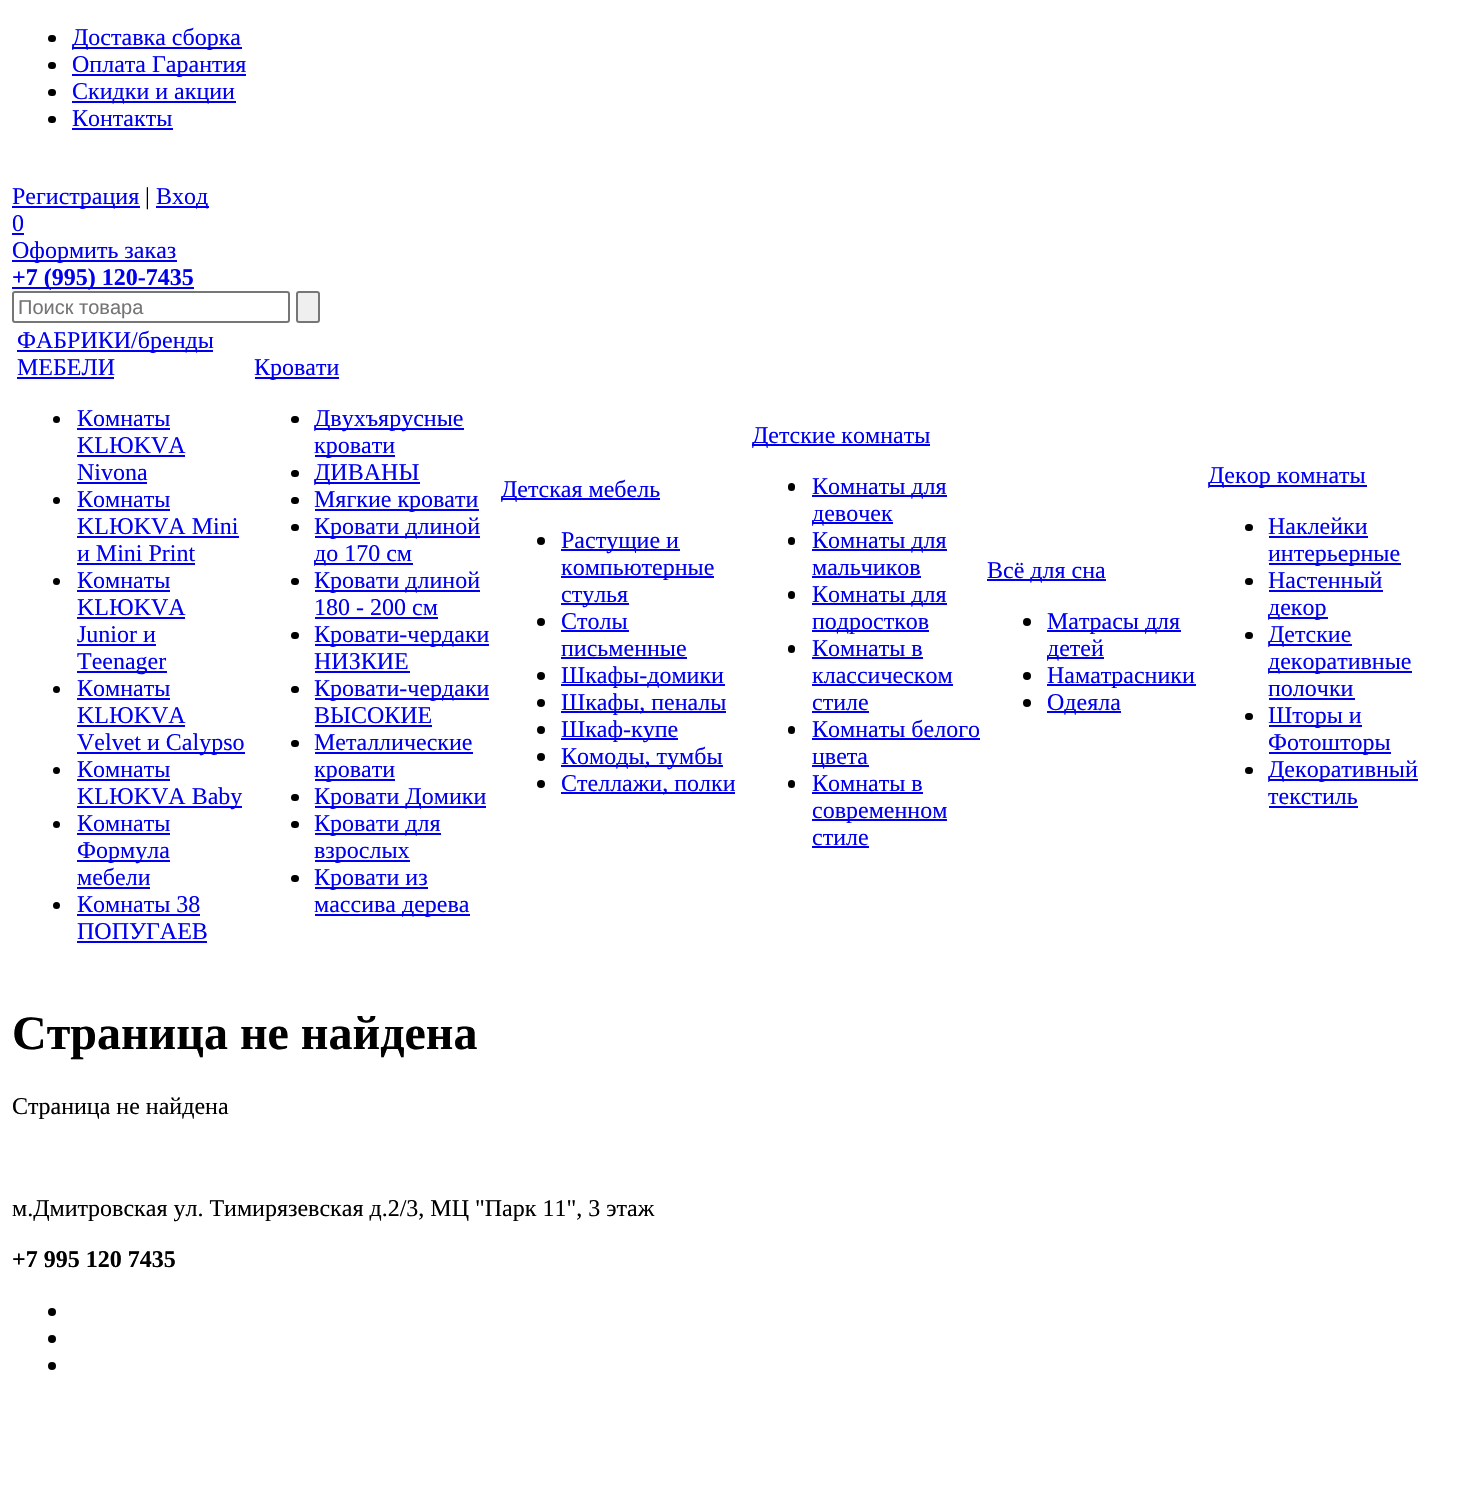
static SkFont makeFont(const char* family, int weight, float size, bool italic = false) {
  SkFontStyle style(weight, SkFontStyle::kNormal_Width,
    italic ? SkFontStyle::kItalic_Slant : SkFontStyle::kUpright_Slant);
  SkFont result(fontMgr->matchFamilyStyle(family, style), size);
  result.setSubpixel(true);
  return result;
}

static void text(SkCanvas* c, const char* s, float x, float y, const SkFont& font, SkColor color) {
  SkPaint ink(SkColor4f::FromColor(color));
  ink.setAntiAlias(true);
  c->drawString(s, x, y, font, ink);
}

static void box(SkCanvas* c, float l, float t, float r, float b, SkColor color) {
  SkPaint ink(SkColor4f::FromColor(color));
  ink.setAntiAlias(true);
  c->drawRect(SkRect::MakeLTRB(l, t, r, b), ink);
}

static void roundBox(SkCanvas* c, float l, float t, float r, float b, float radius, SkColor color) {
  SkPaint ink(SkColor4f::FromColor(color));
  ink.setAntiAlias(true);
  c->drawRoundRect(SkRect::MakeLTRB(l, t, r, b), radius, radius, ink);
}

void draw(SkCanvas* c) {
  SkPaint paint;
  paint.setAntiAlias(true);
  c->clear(0xffffffff);
  roundBox(c, 48, 35, 56, 42, 3.5f, 0xff000000);
  box(c, 72, 47, 242, 49, 0xff0000ee);
  SkFont face1 = makeFont("Liberation Serif", 400, 24);
  text(c, "Доставка сборка", 72, 45, face1, 0xff0000ee);
  roundBox(c, 48, 62, 56, 69, 3.5f, 0xff000000);
  box(c, 72, 74, 246, 76, 0xff0000ee);
  text(c, "Оплата Гарантия", 72, 72, face1, 0xff0000ee);
  roundBox(c, 48, 89, 56, 96, 3.5f, 0xff000000);
  box(c, 72, 101, 236, 103, 0xff0000ee);
  text(c, "Скидки и акции", 72, 99, face1, 0xff0000ee);
  roundBox(c, 48, 116, 56, 123, 3.5f, 0xff000000);
  text(c, "Контакты", 72, 126, face1, 0xff0000ee);
  box(c, 72, 128, 173, 130, 0xff0000ee);
  box(c, 12, 206, 140, 208, 0xff0000ee);
  text(c, "Регистрация", 12, 204, face1, 0xff0000ee);
  text(c, "|", 145, 204, face1, 0xff000000);
  box(c, 156, 206, 209, 208, 0xff0000ee);
  text(c, "Вход", 156, 204, face1, 0xff0000ee);
  text(c, "0", 12, 231, face1, 0xff0000ee);
  box(c, 12, 233, 24, 235, 0xff0000ee);
  box(c, 12, 260, 177, 262, 0xff0000ee);
  text(c, "Оформить заказ", 12, 258, face1, 0xff0000ee);
  box(c, 12, 287, 194, 289, 0xff0000ee);
  SkFont face2 = makeFont("Liberation Serif", 700, 24);
  text(c, "+7 (995) 120-7435", 12, 285, face2, 0xff0000ee);
  paint.setStyle(SkPaint::kStroke_Style);
  paint.setStrokeWidth(2);
  paint.setColor(0xff767676);
  c->drawRoundRect(SkRect::MakeLTRB(13, 292, 289, 322), 2, 2, paint);
  SkFont face3 = makeFont("Liberation Sans", 400, 20);
  text(c, "Поиск товара", 18, 314, face3, 0xff757575);
  paint.setStyle(SkPaint::kFill_Style);
  paint.setColor(0xffefefef);
  c->drawRoundRect(SkRect::MakeLTRB(297, 292, 319, 322), 2, 2, paint);
  paint.setStyle(SkPaint::kStroke_Style);
  paint.setColor(0xff767676);
  c->drawRoundRect(SkRect::MakeLTRB(297, 292, 319, 322), 2, 2, paint);
  box(c, 17, 350, 213, 352, 0xff0000ee);
  text(c, "ФАБРИКИ/бренды", 17, 348, face1, 0xff0000ee);
  text(c, "МЕБЕЛИ", 17, 375, face1, 0xff0000ee);
  box(c, 17, 377, 114, 379, 0xff0000ee);
  paint.setStyle(SkPaint::kFill_Style);
  paint.setColor(0xff000000);
  c->drawCircle(56.5f, 419.5f, 3.5f, paint);
  text(c, "Комнаты", 77, 426, face1, 0xff0000ee);
  box(c, 77, 428, 170, 430, 0xff0000ee);
  text(c, "KLЮKVA", 77, 453, face1, 0xff0000ee);
  box(c, 77, 455, 185, 457, 0xff0000ee);
  text(c, "Nivona", 77, 480, face1, 0xff0000ee);
  box(c, 77, 482, 147, 484, 0xff0000ee);
  c->drawCircle(56.5f, 500.5f, 3.5f, paint);
  text(c, "Комнаты", 77, 507, face1, 0xff0000ee);
  box(c, 77, 509, 170, 511, 0xff0000ee);
  text(c, "KLЮKVA Mini", 77, 534, face1, 0xff0000ee);
  box(c, 77, 536, 239, 538, 0xff0000ee);
  text(c, "и Mini Print", 77, 561, face1, 0xff0000ee);
  box(c, 77, 563, 195, 565, 0xff0000ee);
  c->drawCircle(56.5f, 581.5f, 3.5f, paint);
  text(c, "Комнаты", 77, 588, face1, 0xff0000ee);
  box(c, 77, 590, 170, 592, 0xff0000ee);
  text(c, "KLЮKVA", 77, 615, face1, 0xff0000ee);
  box(c, 77, 617, 185, 619, 0xff0000ee);
  text(c, "Junior и", 77, 642, face1, 0xff0000ee);
  box(c, 77, 644, 156, 646, 0xff0000ee);
  box(c, 77, 671, 167, 673, 0xff0000ee);
  text(c, "Teenager", 77, 669, face1, 0xff0000ee);
  c->drawCircle(56.5f, 689.5f, 3.5f, paint);
  text(c, "Комнаты", 77, 696, face1, 0xff0000ee);
  box(c, 77, 698, 170, 700, 0xff0000ee);
  text(c, "KLЮKVA", 77, 723, face1, 0xff0000ee);
  box(c, 77, 725, 185, 727, 0xff0000ee);
  box(c, 77, 752, 245, 754, 0xff0000ee);
  text(c, "Velvet и Calypso", 77, 750, face1, 0xff0000ee);
  c->drawCircle(56.5f, 770.5f, 3.5f, paint);
  text(c, "Комнаты", 77, 777, face1, 0xff0000ee);
  box(c, 77, 779, 170, 781, 0xff0000ee);
  box(c, 77, 806, 242, 808, 0xff0000ee);
  text(c, "KLЮKVA Baby", 77, 804, face1, 0xff0000ee);
  c->drawCircle(56.5f, 824.5f, 3.5f, paint);
  text(c, "Комнаты", 77, 831, face1, 0xff0000ee);
  box(c, 77, 833, 170, 835, 0xff0000ee);
  box(c, 77, 860, 170, 862, 0xff0000ee);
  text(c, "Формула", 77, 858, face1, 0xff0000ee);
  text(c, "мебели", 77, 885, face1, 0xff0000ee);
  box(c, 77, 887, 150, 889, 0xff0000ee);
  c->drawCircle(56.5f, 905.5f, 3.5f, paint);
  text(c, "Комнаты 38", 77, 912, face1, 0xff0000ee);
  box(c, 77, 914, 200, 916, 0xff0000ee);
  text(c, "ПОПУГАЕВ", 77, 939, face1, 0xff0000ee);
  box(c, 77, 941, 207, 943, 0xff0000ee);
  box(c, 255, 377, 339, 379, 0xff0000ee);
  text(c, "Кровати", 254, 375, face1, 0xff0000ee);
  roundBox(c, 291, 416, 299, 423, 3.5f, 0xff000000);
  box(c, 315, 428, 464, 430, 0xff0000ee);
  text(c, "Двухъярусные", 314, 426, face1, 0xff0000ee);
  box(c, 315, 455, 395, 457, 0xff0000ee);
  text(c, "кровати", 314, 453, face1, 0xff0000ee);
  roundBox(c, 291, 470, 299, 477, 3.5f, 0xff000000);
  box(c, 315, 482, 420, 484, 0xff0000ee);
  text(c, "ДИВАНЫ", 314, 480, face1, 0xff0000ee);
  roundBox(c, 291, 497, 299, 504, 3.5f, 0xff000000);
  box(c, 315, 509, 479, 511, 0xff0000ee);
  text(c, "Мягкие кровати", 314, 507, face1, 0xff0000ee);
  roundBox(c, 291, 524, 299, 531, 3.5f, 0xff000000);
  box(c, 315, 536, 480, 538, 0xff0000ee);
  text(c, "Кровати длиной", 314, 534, face1, 0xff0000ee);
  box(c, 315, 563, 413, 565, 0xff0000ee);
  text(c, "до 170 см", 314, 561, face1, 0xff0000ee);
  roundBox(c, 291, 578, 299, 585, 3.5f, 0xff000000);
  box(c, 315, 590, 480, 592, 0xff0000ee);
  text(c, "Кровати длиной", 314, 588, face1, 0xff0000ee);
  text(c, "180 - 200 см", 314, 615, face1, 0xff0000ee);
  box(c, 315, 617, 438, 619, 0xff0000ee);
  roundBox(c, 291, 632, 299, 639, 3.5f, 0xff000000);
  box(c, 315, 644, 489, 646, 0xff0000ee);
  text(c, "Кровати-чердаки", 314, 642, face1, 0xff0000ee);
  text(c, "НИЗКИЕ", 314, 669, face1, 0xff0000ee);
  box(c, 315, 671, 410, 673, 0xff0000ee);
  roundBox(c, 291, 686, 299, 693, 3.5f, 0xff000000);
  box(c, 315, 698, 489, 700, 0xff0000ee);
  text(c, "Кровати-чердаки", 314, 696, face1, 0xff0000ee);
  text(c, "ВЫСОКИЕ", 314, 723, face1, 0xff0000ee);
  box(c, 315, 725, 432, 727, 0xff0000ee);
  roundBox(c, 291, 740, 299, 747, 3.5f, 0xff000000);
  text(c, "Металлические", 314, 750, face1, 0xff0000ee);
  box(c, 315, 752, 473, 754, 0xff0000ee);
  box(c, 315, 779, 395, 781, 0xff0000ee);
  text(c, "кровати", 314, 777, face1, 0xff0000ee);
  roundBox(c, 291, 794, 299, 801, 3.5f, 0xff000000);
  box(c, 315, 806, 486, 808, 0xff0000ee);
  text(c, "Кровати Домики", 314, 804, face1, 0xff0000ee);
  roundBox(c, 291, 821, 299, 828, 3.5f, 0xff000000);
  box(c, 315, 833, 441, 835, 0xff0000ee);
  text(c, "Кровати для", 314, 831, face1, 0xff0000ee);
  box(c, 315, 860, 410, 862, 0xff0000ee);
  text(c, "взрослых", 314, 858, face1, 0xff0000ee);
  roundBox(c, 291, 875, 299, 882, 3.5f, 0xff000000);
  box(c, 315, 887, 428, 889, 0xff0000ee);
  text(c, "Кровати из", 314, 885, face1, 0xff0000ee);
  box(c, 315, 914, 470, 916, 0xff0000ee);
  text(c, "массива дерева", 314, 912, face1, 0xff0000ee);
  box(c, 501, 498, 660, 500, 0xff0000ee);
  text(c, "Детская мебель", 501, 497, face1, 0xff0000ee);
  c->drawCircle(541, 541, 4, paint);
  box(c, 561, 549, 680, 551, 0xff0000ee);
  text(c, "Растущие и", 561, 548, face1, 0xff0000ee);
  box(c, 561, 576, 714, 578, 0xff0000ee);
  text(c, "компьютерные", 561, 575, face1, 0xff0000ee);
  box(c, 561, 603, 629, 605, 0xff0000ee);
  text(c, "стулья", 561, 602, face1, 0xff0000ee);
  c->drawCircle(541, 622, 4, paint);
  text(c, "Столы", 561, 629, face1, 0xff0000ee);
  box(c, 561, 630, 629, 632, 0xff0000ee);
  text(c, "письменные", 561, 656, face1, 0xff0000ee);
  box(c, 561, 657, 687, 659, 0xff0000ee);
  c->drawCircle(541, 676, 4, paint);
  box(c, 561, 684, 725, 686, 0xff0000ee);
  text(c, "Шкафы-домики", 561, 683, face1, 0xff0000ee);
  c->drawCircle(541, 703, 4, paint);
  box(c, 561, 711, 726, 713, 0xff0000ee);
  text(c, "Шкафы, пеналы", 561, 710, face1, 0xff0000ee);
  c->drawCircle(541, 730, 4, paint);
  box(c, 561, 738, 678, 740, 0xff0000ee);
  text(c, "Шкаф-купе", 561, 737, face1, 0xff0000ee);
  c->drawCircle(541, 757, 4, paint);
  box(c, 561, 765, 723, 767, 0xff0000ee);
  text(c, "Комоды, тумбы", 561, 764, face1, 0xff0000ee);
  c->drawCircle(541, 784, 4, paint);
  box(c, 561, 792, 735, 794, 0xff0000ee);
  text(c, "Стеллажи, полки", 561, 791, face1, 0xff0000ee);
  box(c, 752, 444, 930, 446, 0xff0000ee);
  text(c, "Детские комнаты", 752, 443, face1, 0xff0000ee);
  roundBox(c, 788, 483, 795, 491, 3.5f, 0xff000000);
  box(c, 812, 495, 947, 497, 0xff0000ee);
  text(c, "Комнаты для", 812, 494, face1, 0xff0000ee);
  box(c, 812, 522, 893, 524, 0xff0000ee);
  text(c, "девочек", 812, 521, face1, 0xff0000ee);
  roundBox(c, 788, 537, 795, 545, 3.5f, 0xff000000);
  box(c, 812, 549, 947, 551, 0xff0000ee);
  text(c, "Комнаты для", 812, 548, face1, 0xff0000ee);
  text(c, "мальчиков", 812, 575, face1, 0xff0000ee);
  box(c, 812, 576, 921, 578, 0xff0000ee);
  roundBox(c, 788, 591, 795, 599, 3.5f, 0xff000000);
  box(c, 812, 603, 947, 605, 0xff0000ee);
  text(c, "Комнаты для", 812, 602, face1, 0xff0000ee);
  box(c, 812, 630, 929, 632, 0xff0000ee);
  text(c, "подростков", 812, 629, face1, 0xff0000ee);
  roundBox(c, 788, 645, 795, 653, 3.5f, 0xff000000);
  text(c, "Комнаты в", 812, 656, face1, 0xff0000ee);
  box(c, 812, 657, 923, 659, 0xff0000ee);
  text(c, "классическом", 812, 683, face1, 0xff0000ee);
  box(c, 812, 684, 953, 686, 0xff0000ee);
  text(c, "стиле", 812, 710, face1, 0xff0000ee);
  box(c, 812, 711, 869, 713, 0xff0000ee);
  roundBox(c, 788, 726, 795, 734, 3.5f, 0xff000000);
  text(c, "Комнаты белого", 812, 737, face1, 0xff0000ee);
  box(c, 812, 738, 980, 740, 0xff0000ee);
  box(c, 812, 765, 869, 767, 0xff0000ee);
  text(c, "цвета", 812, 764, face1, 0xff0000ee);
  roundBox(c, 788, 780, 795, 788, 3.5f, 0xff000000);
  text(c, "Комнаты в", 812, 791, face1, 0xff0000ee);
  box(c, 812, 792, 923, 794, 0xff0000ee);
  box(c, 812, 819, 947, 821, 0xff0000ee);
  text(c, "современном", 812, 818, face1, 0xff0000ee);
  text(c, "стиле", 812, 845, face1, 0xff0000ee);
  box(c, 812, 846, 869, 848, 0xff0000ee);
  box(c, 987, 579, 1106, 581, 0xff0000ee);
  text(c, "Всё для сна", 987, 578, face1, 0xff0000ee);
  c->drawCircle(1027, 622, 4, paint);
  box(c, 1047, 630, 1181, 632, 0xff0000ee);
  text(c, "Матрасы для", 1047, 629, face1, 0xff0000ee);
  box(c, 1047, 657, 1104, 659, 0xff0000ee);
  text(c, "детей", 1047, 656, face1, 0xff0000ee);
  c->drawCircle(1027, 676, 4, paint);
  box(c, 1047, 684, 1196, 686, 0xff0000ee);
  text(c, "Наматрасники", 1047, 683, face1, 0xff0000ee);
  c->drawCircle(1027, 703, 4, paint);
  box(c, 1047, 711, 1121, 713, 0xff0000ee);
  text(c, "Одеяла", 1047, 710, face1, 0xff0000ee);
  box(c, 1209, 485, 1367, 487, 0xff0000ee);
  text(c, "Декор комнаты", 1208, 483, face1, 0xff0000ee);
  roundBox(c, 1245, 524, 1253, 531, 3.5f, 0xff000000);
  text(c, "Наклейки", 1268, 534, face1, 0xff0000ee);
  box(c, 1269, 536, 1368, 538, 0xff0000ee);
  box(c, 1269, 563, 1401, 565, 0xff0000ee);
  text(c, "интерьерные", 1268, 561, face1, 0xff0000ee);
  roundBox(c, 1245, 578, 1253, 585, 3.5f, 0xff000000);
  text(c, "Настенный", 1268, 588, face1, 0xff0000ee);
  box(c, 1269, 590, 1383, 592, 0xff0000ee);
  box(c, 1269, 617, 1328, 619, 0xff0000ee);
  text(c, "декор", 1268, 615, face1, 0xff0000ee);
  roundBox(c, 1245, 632, 1253, 639, 3.5f, 0xff000000);
  box(c, 1269, 644, 1352, 646, 0xff0000ee);
  text(c, "Детские", 1268, 642, face1, 0xff0000ee);
  box(c, 1269, 671, 1412, 673, 0xff0000ee);
  text(c, "декоративные", 1268, 669, face1, 0xff0000ee);
  text(c, "полочки", 1268, 696, face1, 0xff0000ee);
  box(c, 1269, 698, 1355, 700, 0xff0000ee);
  roundBox(c, 1245, 713, 1253, 720, 3.5f, 0xff000000);
  box(c, 1269, 725, 1362, 727, 0xff0000ee);
  text(c, "Шторы и", 1268, 723, face1, 0xff0000ee);
  box(c, 1269, 752, 1391, 754, 0xff0000ee);
  text(c, "Фотошторы", 1268, 750, face1, 0xff0000ee);
  roundBox(c, 1245, 767, 1253, 774, 3.5f, 0xff000000);
  box(c, 1269, 779, 1418, 781, 0xff0000ee);
  text(c, "Декоративный", 1268, 777, face1, 0xff0000ee);
  text(c, "текстиль", 1268, 804, face1, 0xff0000ee);
  box(c, 1269, 806, 1358, 808, 0xff0000ee);
  SkFont face4 = makeFont("Liberation Serif", 700, 48);
  text(c, "Страница не найдена", 12, 1049, face4, 0xff000000);
  text(c, "Страница не найдена", 12, 1114, face1, 0xff000000);
  text(c, "м.Дмитровская ул. Тимирязевская д.2/3, МЦ \"Парк 11\", 3 этаж", 12, 1216, face1, 0xff000000);
  text(c, "+7 995 120 7435", 12, 1267, face2, 0xff000000);
  c->drawCircle(52, 1312, 4, paint);
  c->drawCircle(52, 1339, 4, paint);
  c->drawCircle(52, 1366, 4, paint);
}
